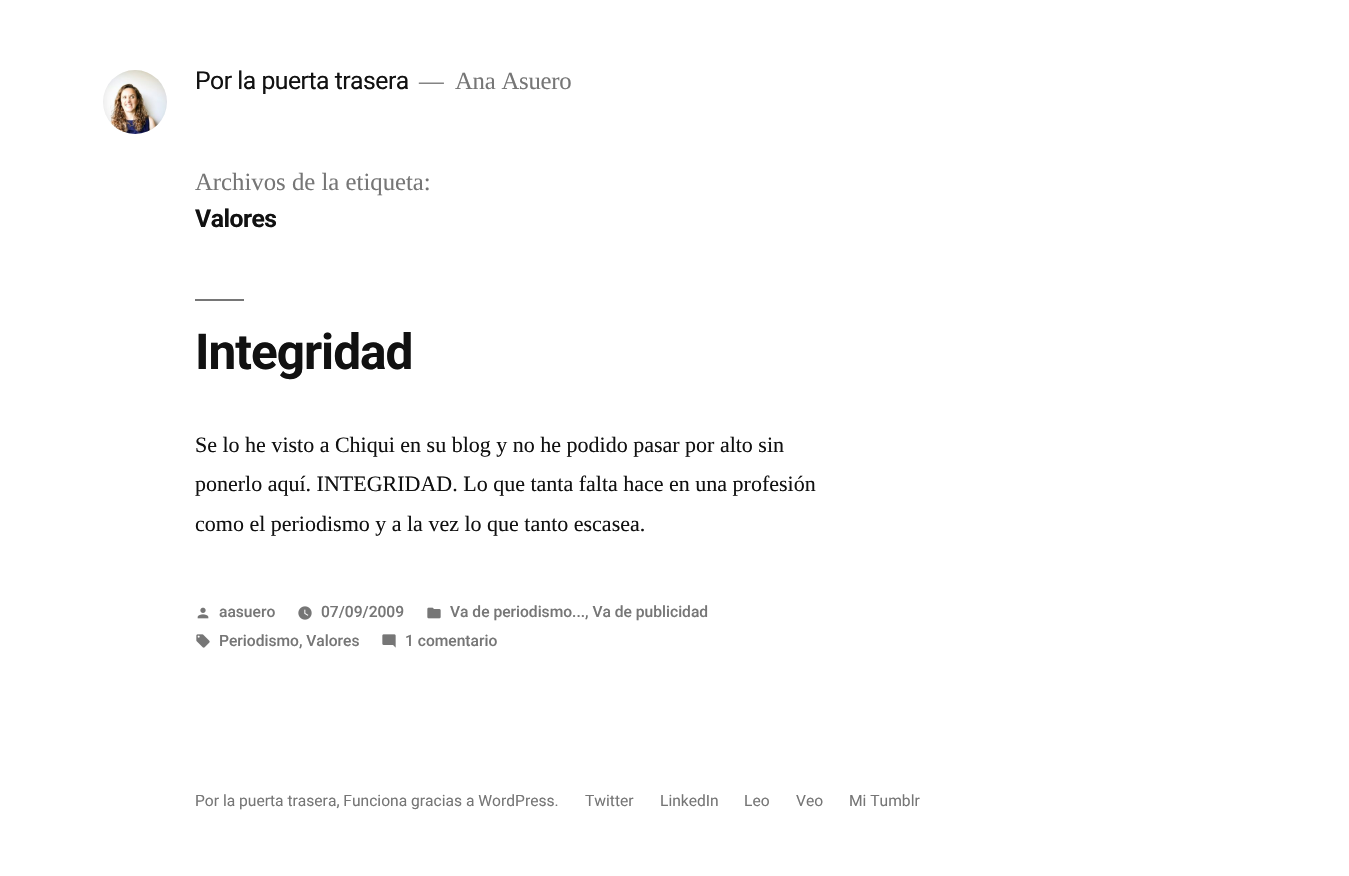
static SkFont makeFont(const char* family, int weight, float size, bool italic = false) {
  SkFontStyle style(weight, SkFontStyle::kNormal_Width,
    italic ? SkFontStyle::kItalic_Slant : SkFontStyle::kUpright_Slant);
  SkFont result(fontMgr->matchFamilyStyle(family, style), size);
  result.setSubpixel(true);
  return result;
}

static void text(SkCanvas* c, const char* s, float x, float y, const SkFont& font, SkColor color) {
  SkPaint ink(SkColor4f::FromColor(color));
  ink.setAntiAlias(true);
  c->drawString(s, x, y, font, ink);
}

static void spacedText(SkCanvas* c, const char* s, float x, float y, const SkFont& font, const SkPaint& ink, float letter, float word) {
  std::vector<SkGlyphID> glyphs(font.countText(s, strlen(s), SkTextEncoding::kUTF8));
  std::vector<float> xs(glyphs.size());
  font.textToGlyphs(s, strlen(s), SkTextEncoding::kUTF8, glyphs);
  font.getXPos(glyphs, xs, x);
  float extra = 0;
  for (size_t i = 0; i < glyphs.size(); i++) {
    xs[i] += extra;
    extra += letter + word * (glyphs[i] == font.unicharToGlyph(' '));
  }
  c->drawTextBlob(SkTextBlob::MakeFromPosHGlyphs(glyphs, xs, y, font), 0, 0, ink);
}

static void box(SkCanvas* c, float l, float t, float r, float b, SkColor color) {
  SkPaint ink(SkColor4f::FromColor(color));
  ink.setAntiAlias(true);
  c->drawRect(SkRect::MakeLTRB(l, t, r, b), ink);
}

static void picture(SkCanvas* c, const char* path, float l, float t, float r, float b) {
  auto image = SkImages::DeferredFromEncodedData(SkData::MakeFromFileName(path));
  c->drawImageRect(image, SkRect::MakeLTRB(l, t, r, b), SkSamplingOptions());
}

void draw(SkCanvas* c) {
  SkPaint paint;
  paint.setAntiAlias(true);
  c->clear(0xffffffff);
  picture(c, "img_01.png", 103, 70, 167, 134);
  SkFont face1 = makeFont("Roboto", 400, 24.75f);
  paint.setColor(0xff111111);
  spacedText(c, "Por la puerta trasera", 195, 89, face1, paint, -0.5f, 0);
  SkFont face2 = makeFont("Liberation Serif", 400, 24.75f);
  paint.setColor(0xff767676);
  spacedText(c, "—", 419, 89, face2, paint, -0.25f, 0);
  spacedText(c, "Ana Asuero", 455, 89, face2, paint, -0.25f, 0);
  text(c, "Archivos de la etiqueta:", 195, 190, face2, 0xff767676);
  SkFont face3 = makeFont("Roboto", 700, 24.75f);
  paint.setColor(0xff111111);
  spacedText(c, "Valores", 195, 227, face3, paint, -0.5f, 0);
  box(c, 195, 299, 244, 301, 0xff767676);
  SkFont face4 = makeFont("Roboto", 700, 49.5f);
  spacedText(c, "Integridad", 195, 369, face4, paint, -1, 0);
  SkFont face5 = makeFont("Liberation Serif", 400, 22);
  text(c, "Se lo he visto a Chiqui en su blog y no he podido pasar por alto sin", 195, 452, face5, 0xff111111);
  text(c, "ponerlo aquí. INTEGRIDAD. Lo que tanta falta hace en una profesión", 195, 491, face5, 0xff111111);
  text(c, "como el periodismo y a la vez lo que tanto escasea.", 195, 531, face5, 0xff111111);
  picture(c, "img_02.png", 197, 607, 209, 619);
  SkFont face6 = makeFont("Roboto", 500, 15.6f);
  text(c, "aasuero", 219, 617, face6, 0xff767676);
  picture(c, "img_03.png", 298, 606, 312, 620);
  text(c, "07/09/2009", 321, 617, face6, 0xff767676);
  picture(c, "img_04.png", 427, 607, 441, 619);
  text(c, "Va de periodismo..., Va de publicidad", 450, 617, face6, 0xff767676);
  picture(c, "img_05.png", 196, 634, 210, 648);
  text(c, "Periodismo, Valores", 219, 646, face6, 0xff767676);
  picture(c, "img_06.png", 382, 634, 396, 648);
  text(c, "1 comentario", 405, 646, face6, 0xff767676);
  SkFont face7 = makeFont("Roboto", 400, 15.6f);
  text(c, "Por la puerta trasera, Funciona gracias a WordPress.", 195, 806, face7, 0xff767676);
  text(c, "Twitter", 585, 806, face7, 0xff767676);
  text(c, "LinkedIn", 660, 806, face7, 0xff767676);
  text(c, "Leo", 744, 806, face7, 0xff767676);
  text(c, "Veo", 796, 806, face7, 0xff767676);
  text(c, "Mi Tumblr", 849, 806, face7, 0xff767676);
}
